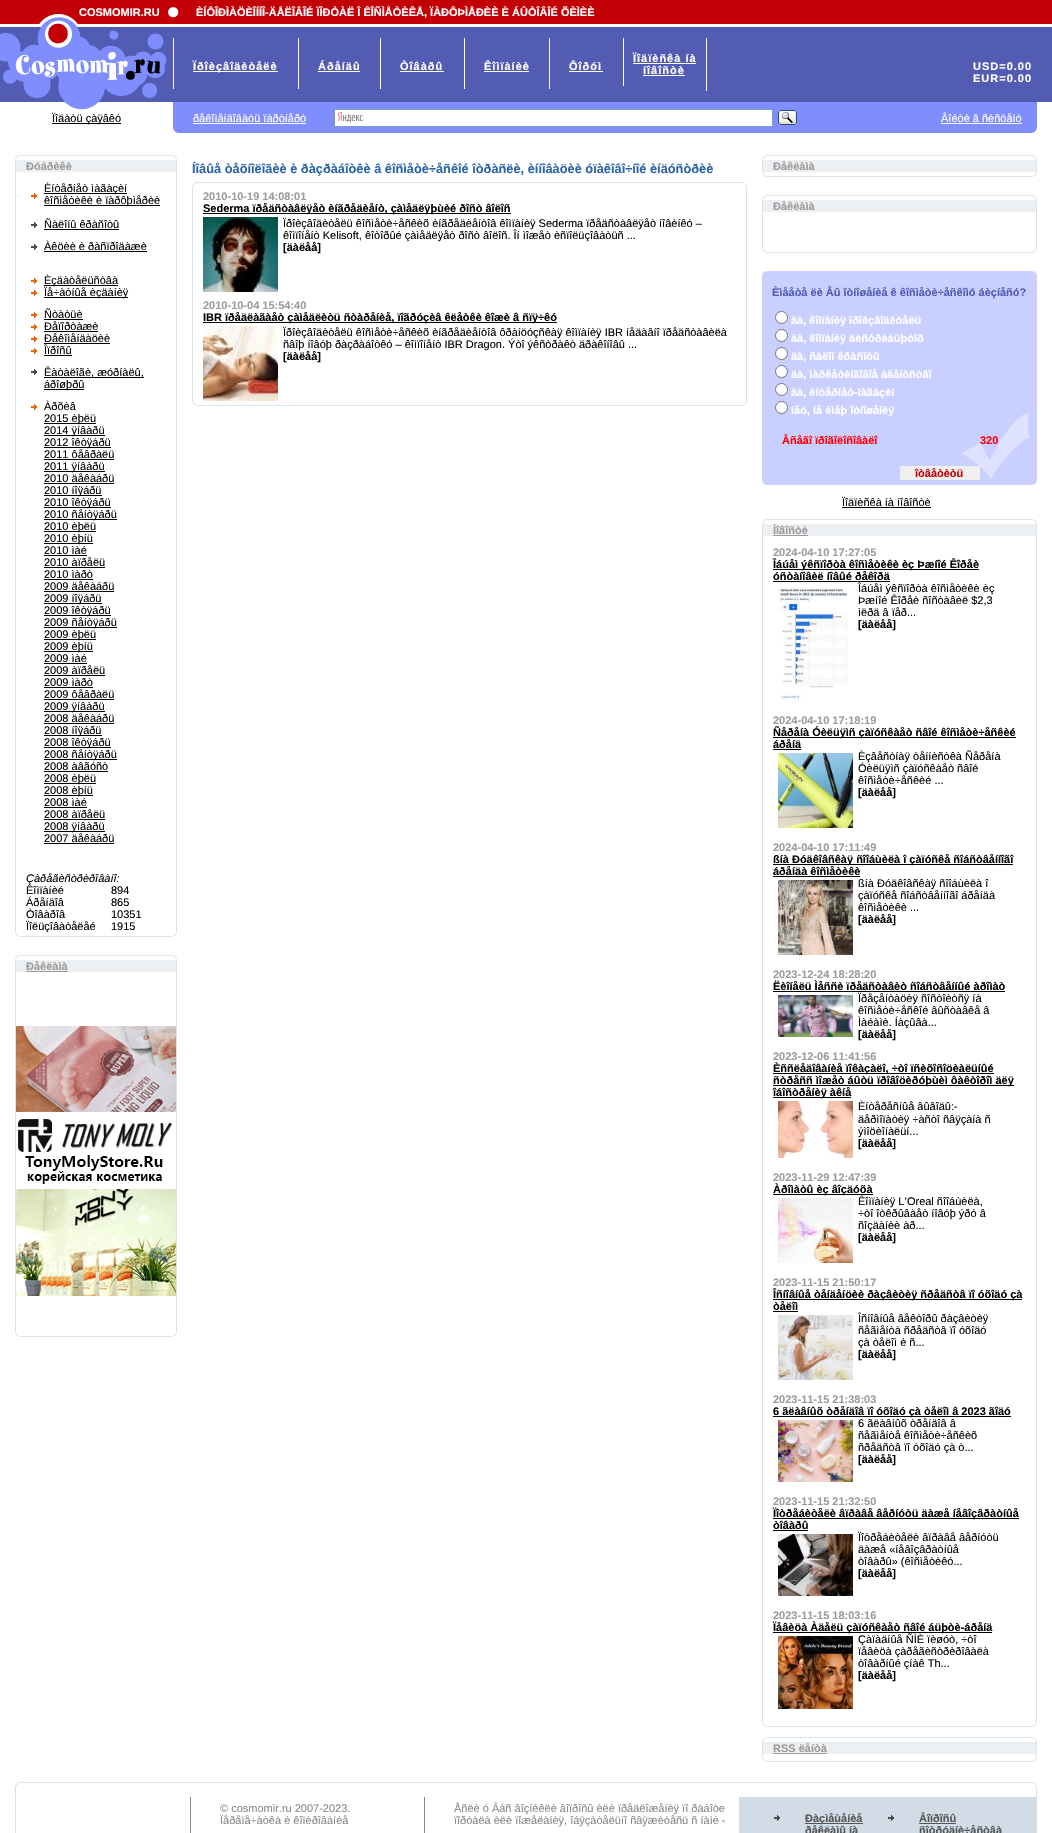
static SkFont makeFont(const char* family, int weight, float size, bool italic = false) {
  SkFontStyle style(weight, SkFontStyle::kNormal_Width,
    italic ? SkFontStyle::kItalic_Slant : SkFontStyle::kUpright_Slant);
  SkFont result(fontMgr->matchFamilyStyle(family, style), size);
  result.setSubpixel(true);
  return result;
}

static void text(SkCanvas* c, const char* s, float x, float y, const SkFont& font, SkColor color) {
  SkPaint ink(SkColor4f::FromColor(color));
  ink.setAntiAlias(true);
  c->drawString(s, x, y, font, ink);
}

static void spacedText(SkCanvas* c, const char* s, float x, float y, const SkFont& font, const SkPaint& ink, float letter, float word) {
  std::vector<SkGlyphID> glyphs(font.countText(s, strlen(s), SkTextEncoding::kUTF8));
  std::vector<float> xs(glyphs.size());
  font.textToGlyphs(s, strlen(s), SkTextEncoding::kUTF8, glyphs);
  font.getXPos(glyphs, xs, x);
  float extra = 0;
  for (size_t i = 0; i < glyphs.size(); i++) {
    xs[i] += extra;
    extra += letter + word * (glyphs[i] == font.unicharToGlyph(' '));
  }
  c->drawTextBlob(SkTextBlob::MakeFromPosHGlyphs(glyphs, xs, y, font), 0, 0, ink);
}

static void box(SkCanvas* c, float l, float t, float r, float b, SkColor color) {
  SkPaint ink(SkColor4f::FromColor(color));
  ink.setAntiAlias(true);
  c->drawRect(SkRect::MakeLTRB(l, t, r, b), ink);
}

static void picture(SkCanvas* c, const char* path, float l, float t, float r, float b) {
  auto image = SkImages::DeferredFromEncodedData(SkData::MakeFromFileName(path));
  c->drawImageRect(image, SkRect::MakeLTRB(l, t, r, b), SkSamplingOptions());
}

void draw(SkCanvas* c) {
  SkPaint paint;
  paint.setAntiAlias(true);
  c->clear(0xffffffff);
  box(c, 0, 0, 1052, 24, 0xffc30005);
  picture(c, "img_01.png", 39, 7, 179, 24);
  SkFont face1 = makeFont("Liberation Sans", 700, 11);
  text(c, "COSMOMIR.RU", 79, 16, face1, 0xffffffff);
  text(c, "ÈÍÔÎÐÌÀÖÈÎÍÍÎ-ÄÅËÎÂÎÉ ÏÎÐÒÀË Î ÊÎÑÌÅÒÈÊÅ, ÏÀÐÔÞÌÅÐÈÈ È ÁÛÒÎÂÎÉ ÕÈÌÈÈ", 196, 16, face1, 0xffffffff);
  picture(c, "img_02.png", 0, 24, 173, 102);
  box(c, 173, 27, 1052, 102, 0xff525cb2);
  box(c, 173, 38, 174, 89, 0xffffffff);
  box(c, 193, 71, 278, 72, 0xffffffff);
  paint.setColor(0xffffffff);
  spacedText(c, "Ïðîèçâîäèòåëè", 193, 70, face1, paint, 1, 0);
  box(c, 298, 38, 299, 89, 0xffffffff);
  spacedText(c, "Áðåíäû", 318, 70, face1, paint, 1, 0);
  box(c, 318, 71, 360, 72, 0xffffffff);
  box(c, 380, 38, 381, 89, 0xffffffff);
  spacedText(c, "Òîâàðû", 400, 70, face1, paint, 1, 0);
  box(c, 400, 71, 444, 72, 0xffffffff);
  box(c, 464, 38, 465, 89, 0xffffffff);
  spacedText(c, "Êîìïàíèè", 484, 70, face1, paint, 1, 0);
  box(c, 484, 71, 529, 72, 0xffffffff);
  box(c, 549, 38, 550, 89, 0xffffffff);
  spacedText(c, "Ôîðóì", 569, 70, face1, paint, 1, 0);
  box(c, 569, 71, 603, 72, 0xffffffff);
  box(c, 623, 38, 624, 86, 0xffffffff);
  spacedText(c, "Ïîäïèñêà íà", 633, 62, face1, paint, 1, 0);
  box(c, 633, 63, 696, 64, 0xffffffff);
  spacedText(c, "íîâîñòè", 643, 74, face1, paint, 1, 0);
  box(c, 643, 75, 685, 76, 0xffffffff);
  box(c, 706, 38, 707, 91, 0xffffffff);
  spacedText(c, "USD=0.00", 973, 70, face1, paint, 1, 0);
  spacedText(c, "EUR=0.00", 973, 82, face1, paint, 1, 0);
  picture(c, "img_03.png", 65, 102, 99, 110);
  box(c, 52, 123, 121, 124, 0xff000000);
  SkFont face2 = makeFont("Liberation Sans", 400, 11);
  text(c, "Ïîäàòü çàÿâêó", 52, 122, face2, 0xff000000);
  picture(c, "img_04.png", 173, 102, 178, 133);
  box(c, 178, 102, 1032, 133, 0xff808dff);
  text(c, "ðåêîìåíäîâàòü ïàðòíåðó", 193, 122, face2, 0xffffffff);
  box(c, 193, 123, 306, 124, 0xffffffff);
  box(c, 335, 110, 772, 126, 0xffffffff);
  picture(c, "img_05.png", 337, 112, 363, 123);
  paint.setStyle(SkPaint::kStroke_Style);
  paint.setStrokeWidth(1);
  paint.setColor(0xff7f9db9);
  c->drawRect(SkRect::MakeLTRB(334.5f, 109.5f, 772.5f, 126.5f), paint);
  picture(c, "img_06.png", 778, 110, 797, 125);
  text(c, "Âîéòè â ñèñòåìó", 941, 122, face2, 0xffffffff);
  box(c, 941, 123, 1022, 124, 0xffffffff);
  picture(c, "img_07.png", 1032, 102, 1037, 133);
  picture(c, "img_08.png", 19, 155, 177, 160);
  picture(c, "img_09.png", 15, 155, 19, 160);
  box(c, 176, 160, 177, 932, 0xffd4e2eb);
  box(c, 15, 160, 16, 932, 0xffd4e2eb);
  box(c, 16, 160, 176, 172, 0xffedf0f3);
  text(c, "Ðóáðèêè", 26, 170, face1, 0xff9c9a9a);
  picture(c, "img_10.png", 31, 193, 37, 199);
  box(c, 44, 193, 127, 194, 0xff000000);
  text(c, "Èíòåðíåò ìàãàçèí", 44, 192, face2, 0xff000000);
  box(c, 44, 205, 160, 206, 0xff000000);
  text(c, "êîñìåòèêè è ïàðôþìåðèè", 44, 204, face2, 0xff000000);
  picture(c, "img_11.png", 31, 222, 37, 228);
  text(c, "Ñàëîíû êðàñîòû", 44, 228, face2, 0xff000000);
  box(c, 44, 229, 119, 230, 0xff000000);
  picture(c, "img_11.png", 31, 244, 37, 250);
  text(c, "Àêöèè è ðàñïðîäàæè", 44, 250, face2, 0xff000000);
  box(c, 44, 251, 147, 252, 0xff000000);
  picture(c, "img_10.png", 31, 278, 37, 284);
  box(c, 44, 285, 118, 286, 0xff000000);
  text(c, "Èçäàòåëüñòâà", 44, 284, face2, 0xff000000);
  picture(c, "img_10.png", 31, 290, 37, 296);
  box(c, 44, 297, 128, 298, 0xff000000);
  text(c, "Ïå÷àòíûå èçäàíèÿ", 44, 296, face2, 0xff000000);
  picture(c, "img_10.png", 31, 312, 37, 318);
  text(c, "Ñòàòüè", 44, 318, face2, 0xff000000);
  box(c, 44, 319, 83, 320, 0xff000000);
  picture(c, "img_10.png", 31, 324, 37, 330);
  text(c, "Ðåïîðòàæè", 44, 330, face2, 0xff000000);
  box(c, 44, 331, 98, 332, 0xff000000);
  picture(c, "img_10.png", 31, 336, 37, 342);
  text(c, "Ðåêîìåíäàöèè", 44, 342, face2, 0xff000000);
  box(c, 44, 343, 110, 344, 0xff000000);
  picture(c, "img_10.png", 31, 348, 37, 354);
  text(c, "Îïðîñû", 44, 354, face2, 0xff000000);
  box(c, 44, 355, 72, 356, 0xff000000);
  picture(c, "img_11.png", 31, 369, 37, 375);
  box(c, 44, 377, 144, 378, 0xff000000);
  text(c, "Êàòàëîãè, æóðíàëû,", 44, 376, face2, 0xff000000);
  box(c, 44, 389, 84, 390, 0xff000000);
  text(c, "áðîøþðû", 44, 388, face2, 0xff000000);
  picture(c, "img_10.png", 31, 404, 37, 410);
  text(c, "Àðõèâ", 44, 410, face2, 0xff000000);
  box(c, 44, 423, 96, 424, 0xff000000);
  text(c, "2015 èþëü", 44, 422, face2, 0xff000000);
  box(c, 44, 435, 105, 436, 0xff000000);
  text(c, "2014 ÿíâàðü", 44, 434, face2, 0xff000000);
  box(c, 44, 447, 111, 448, 0xff000000);
  text(c, "2012 îêòÿáðü", 44, 446, face2, 0xff000000);
  text(c, "2011 ôåâðàëü", 44, 458, face2, 0xff000000);
  box(c, 44, 459, 114, 460, 0xff000000);
  box(c, 44, 471, 105, 472, 0xff000000);
  text(c, "2011 ÿíâàðü", 44, 470, face2, 0xff000000);
  text(c, "2010 äåêàáðü", 44, 482, face2, 0xff000000);
  box(c, 44, 483, 114, 484, 0xff000000);
  box(c, 44, 495, 102, 496, 0xff000000);
  text(c, "2010 íîÿáðü", 44, 494, face2, 0xff000000);
  box(c, 44, 507, 111, 508, 0xff000000);
  text(c, "2010 îêòÿáðü", 44, 506, face2, 0xff000000);
  box(c, 44, 519, 117, 520, 0xff000000);
  text(c, "2010 ñåíòÿáðü", 44, 518, face2, 0xff000000);
  box(c, 44, 531, 96, 532, 0xff000000);
  text(c, "2010 èþëü", 44, 530, face2, 0xff000000);
  box(c, 44, 543, 93, 544, 0xff000000);
  text(c, "2010 èþíü", 44, 542, face2, 0xff000000);
  text(c, "2010 ìàé", 44, 554, face2, 0xff000000);
  box(c, 44, 555, 87, 556, 0xff000000);
  text(c, "2010 àïðåëü", 44, 566, face2, 0xff000000);
  box(c, 44, 567, 105, 568, 0xff000000);
  text(c, "2010 ìàðò", 44, 578, face2, 0xff000000);
  box(c, 44, 579, 93, 580, 0xff000000);
  text(c, "2009 äåêàáðü", 44, 590, face2, 0xff000000);
  box(c, 44, 591, 114, 592, 0xff000000);
  box(c, 44, 603, 102, 604, 0xff000000);
  text(c, "2009 íîÿáðü", 44, 602, face2, 0xff000000);
  box(c, 44, 615, 111, 616, 0xff000000);
  text(c, "2009 îêòÿáðü", 44, 614, face2, 0xff000000);
  box(c, 44, 627, 117, 628, 0xff000000);
  text(c, "2009 ñåíòÿáðü", 44, 626, face2, 0xff000000);
  box(c, 44, 639, 96, 640, 0xff000000);
  text(c, "2009 èþëü", 44, 638, face2, 0xff000000);
  box(c, 44, 651, 93, 652, 0xff000000);
  text(c, "2009 èþíü", 44, 650, face2, 0xff000000);
  text(c, "2009 ìàé", 44, 662, face2, 0xff000000);
  box(c, 44, 663, 87, 664, 0xff000000);
  text(c, "2009 àïðåëü", 44, 674, face2, 0xff000000);
  box(c, 44, 675, 105, 676, 0xff000000);
  text(c, "2009 ìàðò", 44, 686, face2, 0xff000000);
  box(c, 44, 687, 93, 688, 0xff000000);
  text(c, "2009 ôåâðàëü", 44, 698, face2, 0xff000000);
  box(c, 44, 699, 114, 700, 0xff000000);
  box(c, 44, 711, 105, 712, 0xff000000);
  text(c, "2009 ÿíâàðü", 44, 710, face2, 0xff000000);
  text(c, "2008 äåêàáðü", 44, 722, face2, 0xff000000);
  box(c, 44, 723, 114, 724, 0xff000000);
  box(c, 44, 735, 102, 736, 0xff000000);
  text(c, "2008 íîÿáðü", 44, 734, face2, 0xff000000);
  box(c, 44, 747, 111, 748, 0xff000000);
  text(c, "2008 îêòÿáðü", 44, 746, face2, 0xff000000);
  box(c, 44, 759, 117, 760, 0xff000000);
  text(c, "2008 ñåíòÿáðü", 44, 758, face2, 0xff000000);
  text(c, "2008 àâãóñò", 44, 770, face2, 0xff000000);
  box(c, 44, 771, 108, 772, 0xff000000);
  box(c, 44, 783, 96, 784, 0xff000000);
  text(c, "2008 èþëü", 44, 782, face2, 0xff000000);
  box(c, 44, 795, 93, 796, 0xff000000);
  text(c, "2008 èþíü", 44, 794, face2, 0xff000000);
  text(c, "2008 ìàé", 44, 806, face2, 0xff000000);
  box(c, 44, 807, 87, 808, 0xff000000);
  text(c, "2008 àïðåëü", 44, 818, face2, 0xff000000);
  box(c, 44, 819, 105, 820, 0xff000000);
  box(c, 44, 831, 105, 832, 0xff000000);
  text(c, "2008 ÿíâàðü", 44, 830, face2, 0xff000000);
  text(c, "2007 äåêàáðü", 44, 842, face2, 0xff000000);
  box(c, 44, 843, 114, 844, 0xff000000);
  SkFont face3 = makeFont("Liberation Sans", 400, 11, true);
  text(c, "Çàðåãèñòðèðîâàíî:", 26, 882, face3, 0xff000000);
  text(c, "Êîìïàíèé", 26, 894, face2, 0xff000000);
  text(c, "894", 111, 894, face2, 0xff000000);
  text(c, "Áðåíäîâ", 26, 906, face2, 0xff000000);
  text(c, "865", 111, 906, face2, 0xff000000);
  text(c, "Òîâàðîâ", 26, 918, face2, 0xff000000);
  text(c, "10351", 111, 918, face2, 0xff000000);
  picture(c, "img_12.png", 19, 932, 177, 937);
  text(c, "Ïîëüçîâàòåëåé", 26, 930, face2, 0xff000000);
  text(c, "1915", 111, 930, face2, 0xff000000);
  picture(c, "img_13.png", 15, 932, 19, 937);
  picture(c, "img_08.png", 19, 955, 177, 960);
  picture(c, "img_09.png", 15, 955, 19, 960);
  box(c, 176, 960, 177, 1332, 0xffd4e2eb);
  box(c, 15, 960, 16, 1332, 0xffd4e2eb);
  box(c, 16, 960, 176, 972, 0xffedf0f3);
  text(c, "Ðåêëàìà", 26, 970, face1, 0xff9c9a9a);
  box(c, 26, 971, 68, 972, 0xff9c9a9a);
  picture(c, "img_14.png", 16, 1026, 176, 1296);
  picture(c, "img_12.png", 19, 1332, 177, 1337);
  picture(c, "img_13.png", 15, 1332, 19, 1337);
  SkFont face4 = makeFont("Liberation Sans", 700, 12.8f);
  text(c, "Íîâûå òåõíîëîãèè è ðàçðàáîòêè â êîñìåòè÷åñêîé îòðàñëè, èííîâàöèè óïàêîâî÷íîé èíäóñòðèè", 192, 173, face4, 0xff2b63a7);
  picture(c, "img_15.png", 196, 182, 747, 187);
  picture(c, "img_09.png", 192, 182, 196, 187);
  box(c, 746, 187, 747, 401, 0xffd4e2eb);
  box(c, 192, 187, 193, 401, 0xffd4e2eb);
  text(c, "2010-10-19 14:08:01", 203, 200, face1, 0xff9c9a9a);
  box(c, 203, 213, 511, 214, 0xff000000);
  text(c, "Sederma ïðåäñòàâëÿåò èíãðåäèåíò, çàìåäëÿþùèé ðîñò âîëîñ", 203, 212, face1, 0xff000000);
  picture(c, "img_16.png", 203, 217, 278, 292);
  text(c, "Ïðîèçâîäèòåëü êîñìåòè÷åñêèõ èíãðåäèåíòîâ êîìïàíèÿ Sederma ïðåäñòàâëÿåò íîâèíêó –", 283, 227, face2, 0xff000000);
  text(c, "êîìïîíåíò Kelisoft, êîòîðûé çàìåäëÿåò ðîñò âîëîñ. Îí ìîæåò èñïîëüçîâàòüñ ...", 283, 239, face2, 0xff000000);
  text(c, "[äàëåå]", 283, 251, face1, 0xff000000);
  text(c, "2010-10-04 15:54:40", 203, 309, face1, 0xff9c9a9a);
  box(c, 203, 322, 557, 323, 0xff000000);
  text(c, "IBR ïðåäëàãàåò çàìåäëèòü ñòàðåíèå, ïîãðóçèâ êëåòêè êîæè â ñïÿ÷êó", 203, 321, face1, 0xff000000);
  picture(c, "img_17.png", 203, 326, 278, 401);
  text(c, "Ïðîèçâîäèòåëü êîñìåòè÷åñêèõ èíãðåäèåíòîâ ôðàíöóçñêàÿ êîìïàíèÿ IBR íåäàâíî ïðåäñòàâèëà", 283, 336, face2, 0xff000000);
  text(c, "ñâîþ íîâóþ ðàçðàáîòêó – êîìïîíåíò IBR Dragon. Ýòî ýêñòðàêò äðàêîíîâû ...", 283, 348, face2, 0xff000000);
  text(c, "[äàëåå]", 283, 360, face1, 0xff000000);
  picture(c, "img_18.png", 196, 401, 747, 406);
  picture(c, "img_13.png", 192, 401, 196, 406);
  picture(c, "img_19.png", 766, 155, 1037, 160);
  picture(c, "img_09.png", 762, 155, 766, 160);
  box(c, 1036, 160, 1037, 172, 0xffd4e2eb);
  box(c, 762, 160, 763, 172, 0xffd4e2eb);
  box(c, 763, 160, 1036, 172, 0xffedf0f3);
  text(c, "Ðåêëàìà", 773, 170, face1, 0xff9c9a9a);
  picture(c, "img_20.png", 766, 172, 1037, 177);
  picture(c, "img_13.png", 762, 172, 766, 177);
  picture(c, "img_19.png", 766, 195, 1037, 200);
  picture(c, "img_09.png", 762, 195, 766, 200);
  box(c, 1036, 200, 1037, 248, 0xffd4e2eb);
  box(c, 762, 200, 763, 248, 0xffd4e2eb);
  box(c, 763, 200, 1036, 212, 0xffedf0f3);
  text(c, "Ðåêëàìà", 773, 210, face1, 0xff9c9a9a);
  picture(c, "img_20.png", 766, 248, 1037, 253);
  picture(c, "img_13.png", 762, 248, 766, 253);
  box(c, 762, 271, 1037, 485, 0xffc9cfff);
  picture(c, "img_21.png", 962, 412, 1030, 478);
  picture(c, "img_22.png", 1032, 271, 1037, 276);
  picture(c, "img_23.png", 762, 271, 767, 276);
  text(c, "Èìååòå ëè Âû îòíîøåíèå ê êîñìåòè÷åñêîìó áèçíåñó?", 772, 296, face1, 0xff525cb2);
  paint.setStyle(SkPaint::kFill_Style);
  paint.setColor(0xffffffff);
  c->drawCircle(781.5f, 317.5f, 6, paint);
  paint.setStyle(SkPaint::kStroke_Style);
  paint.setColor(0xff767676);
  c->drawCircle(781.5f, 317.5f, 6, paint);
  text(c, "äà, êîìïàíèÿ ïðîèçâîäèòåëü", 791, 324, face1, 0xffffffff);
  paint.setStyle(SkPaint::kFill_Style);
  paint.setColor(0xffffffff);
  c->drawCircle(781.5f, 335.5f, 6, paint);
  paint.setStyle(SkPaint::kStroke_Style);
  paint.setColor(0xff767676);
  c->drawCircle(781.5f, 335.5f, 6, paint);
  text(c, "äà, êîìïàíèÿ äèñòðèáüþòîð", 791, 342, face1, 0xffffffff);
  paint.setStyle(SkPaint::kFill_Style);
  paint.setColor(0xffffffff);
  c->drawCircle(781.5f, 353.5f, 6, paint);
  paint.setStyle(SkPaint::kStroke_Style);
  paint.setColor(0xff767676);
  c->drawCircle(781.5f, 353.5f, 6, paint);
  text(c, "äà, ñàëîí êðàñîòû", 791, 360, face1, 0xffffffff);
  paint.setStyle(SkPaint::kFill_Style);
  paint.setColor(0xffffffff);
  c->drawCircle(781.5f, 371.5f, 6, paint);
  paint.setStyle(SkPaint::kStroke_Style);
  paint.setColor(0xff767676);
  c->drawCircle(781.5f, 371.5f, 6, paint);
  text(c, "äà, ìàðêåòèíãîâîå àãåíòñòâî", 791, 378, face1, 0xffffffff);
  paint.setStyle(SkPaint::kFill_Style);
  paint.setColor(0xffffffff);
  c->drawCircle(781.5f, 389.5f, 6, paint);
  paint.setStyle(SkPaint::kStroke_Style);
  paint.setColor(0xff767676);
  c->drawCircle(781.5f, 389.5f, 6, paint);
  text(c, "äà, èíòåðíåò-ìàãàçèí", 791, 396, face1, 0xffffffff);
  paint.setStyle(SkPaint::kFill_Style);
  paint.setColor(0xffffffff);
  c->drawCircle(781.5f, 407.5f, 6, paint);
  paint.setStyle(SkPaint::kStroke_Style);
  paint.setColor(0xff767676);
  c->drawCircle(781.5f, 407.5f, 6, paint);
  text(c, "íåò, íå èìåþ îòíîøåíèÿ", 791, 414, face1, 0xffffffff);
  text(c, "Âñåãî ïðîãîëîñîâàëî", 782, 444, face1, 0xffff0000);
  text(c, "320", 980, 444, face1, 0xffff0000);
  box(c, 900, 466, 980, 480, 0xffefefef);
  text(c, "îòâåòèòü", 915, 477, face1, 0xffc30005);
  picture(c, "img_24.png", 1032, 480, 1037, 485);
  picture(c, "img_25.png", 762, 480, 767, 485);
  text(c, "Ïîäïèñêà íà íîâîñòè", 842, 506, face2, 0xff000000);
  box(c, 842, 507, 931, 508, 0xff000000);
  picture(c, "img_19.png", 766, 519, 1037, 524);
  picture(c, "img_09.png", 762, 519, 766, 524);
  box(c, 1036, 524, 1037, 1722, 0xffd4e2eb);
  box(c, 762, 524, 763, 1722, 0xffd4e2eb);
  box(c, 763, 524, 1036, 536, 0xffedf0f3);
  text(c, "Íîâîñòè", 773, 534, face1, 0xff9c9a9a);
  box(c, 773, 535, 808, 536, 0xff9c9a9a);
  text(c, "2024-04-10 17:27:05", 773, 556, face1, 0xff9c9a9a);
  box(c, 773, 569, 979, 570, 0xff000000);
  text(c, "Îáúåì ýêñïîðòà êîñìåòèêè èç Þæíîé Êîðåè", 773, 568, face1, 0xff000000);
  text(c, "óñòàíîâèë íîâûé ðåêîðä", 773, 580, face1, 0xff000000);
  box(c, 773, 581, 890, 582, 0xff000000);
  picture(c, "img_26.png", 778, 587, 848, 700);
  text(c, "Îáúåì ýêñïîðòà êîñìåòèêè èç", 858, 592, face2, 0xff000000);
  text(c, "Þæíîé Êîðåè ñîñòàâèë $2,3", 858, 604, face2, 0xff000000);
  text(c, "ìëðä â ïåð...", 858, 616, face2, 0xff000000);
  text(c, "[äàëåå]", 858, 628, face1, 0xff000000);
  text(c, "2024-04-10 17:18:19", 773, 724, face1, 0xff9c9a9a);
  box(c, 773, 737, 1016, 738, 0xff000000);
  text(c, "Ñåðåíà Óèëüÿìñ çàïóñêàåò ñâîé êîñìåòè÷åñêèé", 773, 736, face1, 0xff000000);
  text(c, "áðåíä", 773, 748, face1, 0xff000000);
  box(c, 773, 749, 801, 750, 0xff000000);
  picture(c, "img_27.png", 778, 753, 853, 828);
  text(c, "Èçâåñòíàÿ òåííèñòêà Ñåðåíà", 858, 760, face2, 0xff000000);
  text(c, "Óèëüÿìñ çàïóñêàåò ñâîé", 858, 772, face2, 0xff000000);
  text(c, "êîñìåòè÷åñêèé ...", 858, 784, face2, 0xff000000);
  text(c, "[äàëåå]", 858, 796, face1, 0xff000000);
  text(c, "2024-04-10 17:11:49", 773, 851, face1, 0xff9c9a9a);
  box(c, 773, 864, 1013, 865, 0xff000000);
  text(c, "ßíà Ðóäêîâñêàÿ ñîîáùèëà î çàïóñêå ñîáñòâåííîãî", 773, 863, face1, 0xff000000);
  text(c, "áðåíäà êîñìåòèêè", 773, 875, face1, 0xff000000);
  box(c, 773, 876, 860, 877, 0xff000000);
  picture(c, "img_28.png", 778, 880, 853, 955);
  text(c, "ßíà Ðóäêîâñêàÿ ñîîáùèëà î", 858, 887, face2, 0xff000000);
  text(c, "çàïóñêå ñîáñòâåííîãî áðåíäà", 858, 899, face2, 0xff000000);
  text(c, "êîñìåòèêè ...", 858, 911, face2, 0xff000000);
  text(c, "[äàëåå]", 858, 923, face1, 0xff000000);
  text(c, "2023-12-24 18:28:20", 773, 978, face1, 0xff9c9a9a);
  text(c, "Ëèîíåëü Ìåññè ïðåäñòàâèò ñîáñòâåííûé àðîìàò", 773, 990, face1, 0xff000000);
  box(c, 773, 991, 1005, 992, 0xff000000);
  picture(c, "img_29.png", 778, 995, 853, 1037);
  text(c, "Ïðåçåíòàöèÿ ñîñòîèòñÿ íà", 858, 1002, face2, 0xff000000);
  text(c, "êîñìåòè÷åñêîé âûñòàâêå â", 858, 1014, face2, 0xff000000);
  text(c, "Ìàéàìè. Íàçûâà...", 858, 1026, face2, 0xff000000);
  text(c, "[äàëåå]", 858, 1038, face1, 0xff000000);
  text(c, "2023-12-06 11:41:56", 773, 1060, face1, 0xff9c9a9a);
  box(c, 773, 1073, 994, 1074, 0xff000000);
  text(c, "Èññëåäîâàíèå ïîêàçàëî, ÷òî ïñèõîñîöèàëüíûé", 773, 1072, face1, 0xff000000);
  box(c, 773, 1085, 1014, 1086, 0xff000000);
  text(c, "ñòðåññ ìîæåò áûòü ïðîâîöèðóþùèì ôàêòîðîì äëÿ", 773, 1084, face1, 0xff000000);
  box(c, 773, 1097, 851, 1098, 0xff000000);
  text(c, "îáîñòðåíèÿ àêíå", 773, 1096, face1, 0xff000000);
  picture(c, "img_30.png", 778, 1101, 853, 1158);
  text(c, "Èíòåðåñíûå âûâîäû:", 858, 1110, face2, 0xff000000);
  SkFont face5 = makeFont("Noto Sans", 400, 11);
  text(c, "⁃", 954, 1110, face5, 0xff000000);
  text(c, "äåðìîïàòèÿ ÷àñòî ñâÿçàíà ñ", 858, 1123, face2, 0xff000000);
  text(c, "ýìîöèîíàëüí...", 858, 1135, face2, 0xff000000);
  text(c, "[äàëåå]", 858, 1147, face1, 0xff000000);
  text(c, "2023-11-29 12:47:39", 773, 1181, face1, 0xff9c9a9a);
  box(c, 773, 1194, 873, 1195, 0xff000000);
  text(c, "Àðîìàòû èç âîçäóõà", 773, 1193, face1, 0xff000000);
  picture(c, "img_31.png", 778, 1198, 853, 1263);
  text(c, "Êîìïàíèÿ L’Oreal ñîîáùèëà,", 858, 1205, face2, 0xff000000);
  text(c, "÷òî îòêðûâàåò íîâóþ ýðó â", 858, 1217, face2, 0xff000000);
  text(c, "ñîçäàíèè àð...", 858, 1229, face2, 0xff000000);
  text(c, "[äàëåå]", 858, 1241, face1, 0xff000000);
  text(c, "2023-11-15 21:50:17", 773, 1286, face1, 0xff9c9a9a);
  box(c, 773, 1299, 1022, 1300, 0xff000000);
  text(c, "Îñíîâíûå òåíäåíöèè ðàçâèòèÿ ñðåäñòâ ïî óõîäó çà", 773, 1298, face1, 0xff000000);
  text(c, "òåëîì", 773, 1310, face1, 0xff000000);
  box(c, 773, 1311, 798, 1312, 0xff000000);
  picture(c, "img_32.png", 778, 1315, 853, 1380);
  text(c, "Îñíîâíûå âåêòîðû ðàçâèòèÿ", 858, 1322, face2, 0xff000000);
  text(c, "ñåãìåíòà ñðåäñòâ ïî óõîäó", 858, 1334, face2, 0xff000000);
  text(c, "çà òåëîì è ñ...", 858, 1346, face2, 0xff000000);
  text(c, "[äàëåå]", 858, 1358, face1, 0xff000000);
  text(c, "2023-11-15 21:38:03", 773, 1403, face1, 0xff9c9a9a);
  box(c, 773, 1416, 1011, 1417, 0xff000000);
  text(c, "6 ãëàâíûõ òðåíäîâ ïî óõîäó çà òåëîì â 2023 ãîäó", 773, 1415, face1, 0xff000000);
  picture(c, "img_33.png", 778, 1420, 853, 1482);
  text(c, "6 ãëàâíûõ òðåíäîâ â", 858, 1427, face2, 0xff000000);
  text(c, "ñåãìåíòå êîñìåòè÷åñêèõ", 858, 1439, face2, 0xff000000);
  text(c, "ñðåäñòâ ïî óõîäó çà ò...", 858, 1451, face2, 0xff000000);
  text(c, "[äàëåå]", 858, 1463, face1, 0xff000000);
  text(c, "2023-11-15 21:32:50", 773, 1505, face1, 0xff9c9a9a);
  box(c, 773, 1518, 1019, 1519, 0xff000000);
  text(c, "Ïîòðåáèòåëè âïðàâå âåðíóòü äàæå íåâîçâðàòíûå", 773, 1517, face1, 0xff000000);
  text(c, "òîâàðû", 773, 1529, face1, 0xff000000);
  box(c, 773, 1530, 808, 1531, 0xff000000);
  picture(c, "img_34.png", 778, 1534, 853, 1596);
  text(c, "Ïîòðåáèòåëè âïðàâå âåðíóòü", 858, 1541, face2, 0xff000000);
  text(c, "äàæå «íåâîçâðàòíûå", 858, 1553, face2, 0xff000000);
  text(c, "òîâàðû» (êîñìåòèêó...", 858, 1565, face2, 0xff000000);
  text(c, "[äàëåå]", 858, 1577, face1, 0xff000000);
  text(c, "2023-11-15 18:03:16", 773, 1619, face1, 0xff9c9a9a);
  box(c, 773, 1632, 992, 1633, 0xff000000);
  text(c, "Ïåâèöà Àäåëü çàïóñêàåò ñâîé áüþòè-áðåíä", 773, 1631, face1, 0xff000000);
  picture(c, "img_35.png", 778, 1636, 853, 1709);
  text(c, "Çàïàäíûå ÑÌÈ ïèøóò, ÷òî", 858, 1643, face2, 0xff000000);
  text(c, "ïåâèöà çàðåãèñòðèðîâàëà", 858, 1655, face2, 0xff000000);
  text(c, "òîâàðíûé çíàê Th...", 858, 1667, face2, 0xff000000);
  text(c, "[äàëåå]", 858, 1679, face1, 0xff000000);
  picture(c, "img_20.png", 766, 1722, 1037, 1727);
  picture(c, "img_13.png", 762, 1722, 766, 1727);
  picture(c, "img_19.png", 766, 1737, 1037, 1742);
  picture(c, "img_09.png", 762, 1737, 766, 1742);
  box(c, 1036, 1742, 1037, 1757, 0xffd4e2eb);
  box(c, 762, 1742, 763, 1757, 0xffd4e2eb);
  box(c, 763, 1742, 1036, 1754, 0xffedf0f3);
  text(c, "RSS ëåíòà", 773, 1752, face1, 0xff9c9a9a);
  box(c, 773, 1753, 827, 1754, 0xff9c9a9a);
  picture(c, "img_20.png", 766, 1757, 1037, 1762);
  picture(c, "img_13.png", 762, 1757, 766, 1762);
  box(c, 15, 1782, 16, 1833, 0xffd4e2eb);
  box(c, 1036, 1782, 1037, 1797, 0xffd4e2eb);
  picture(c, "img_36.png", 19, 1782, 1037, 1787);
  picture(c, "img_09.png", 15, 1782, 19, 1787);
  box(c, 190, 1797, 191, 1833, 0xff888888);
  text(c, "© cosmomir.ru 2007-2023.", 220, 1812, face2, 0xff888888);
  text(c, "Ïåðåïå÷àòêà è êîïèðîâàíèå", 220, 1824, face2, 0xff888888);
  box(c, 424, 1797, 425, 1833, 0xff888888);
  text(c, "Åñëè ó Âàñ âîçíèêëè âîïðîñû èëè ïðåäëîæåíèÿ ïî ðàáîòe", 454, 1812, face2, 0xff888888);
  text(c, "ïîðòàëà èëè ïîæåëàíèÿ, îáÿçàòåëüíî ñâÿæèòåñü ñ íàìè -", 454, 1824, face2, 0xff888888);
  box(c, 739, 1797, 1037, 1833, 0xffd1dce7);
  picture(c, "img_37.png", 774, 1815, 780, 1821);
  box(c, 805, 1823, 863, 1824, 0xff555555);
  text(c, "Ðàçìåùåíèå", 805, 1822, face1, 0xff555555);
  text(c, "ðåêëàìû íà", 805, 1834, face1, 0xff555555);
  picture(c, "img_37.png", 888, 1815, 894, 1821);
  text(c, "Âîïðîñû", 919, 1822, face1, 0xff555555);
  text(c, "ñîòðóäíè÷åñòâà", 919, 1834, face1, 0xff555555);
  box(c, 919, 1823, 956, 1824, 0xff555555);
}
